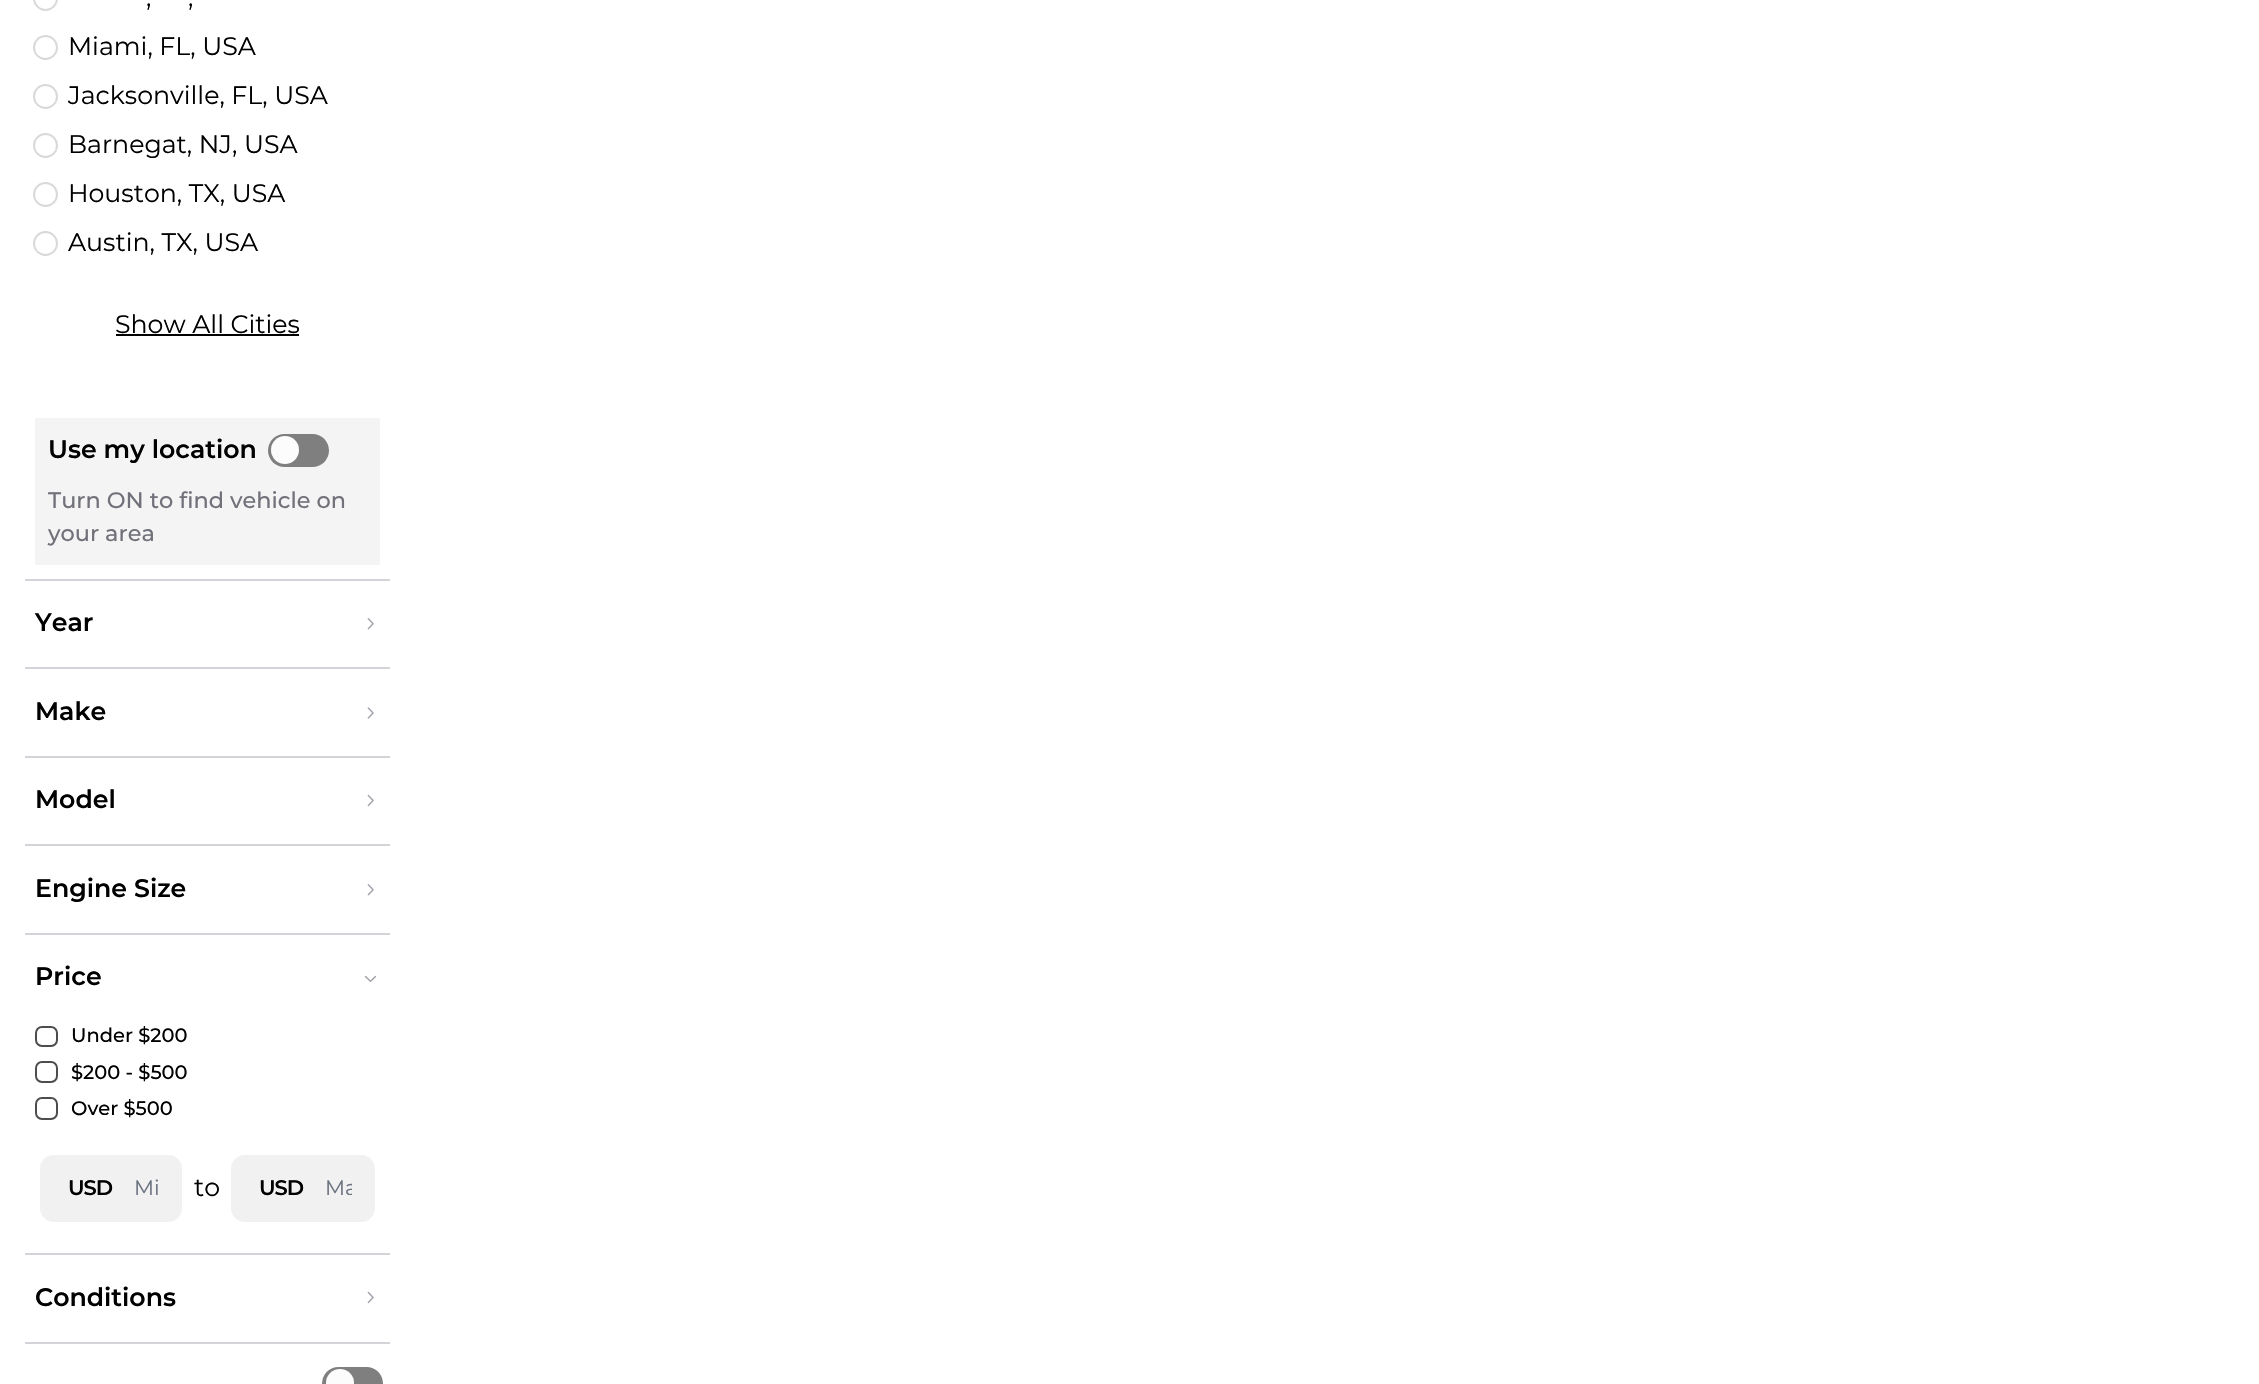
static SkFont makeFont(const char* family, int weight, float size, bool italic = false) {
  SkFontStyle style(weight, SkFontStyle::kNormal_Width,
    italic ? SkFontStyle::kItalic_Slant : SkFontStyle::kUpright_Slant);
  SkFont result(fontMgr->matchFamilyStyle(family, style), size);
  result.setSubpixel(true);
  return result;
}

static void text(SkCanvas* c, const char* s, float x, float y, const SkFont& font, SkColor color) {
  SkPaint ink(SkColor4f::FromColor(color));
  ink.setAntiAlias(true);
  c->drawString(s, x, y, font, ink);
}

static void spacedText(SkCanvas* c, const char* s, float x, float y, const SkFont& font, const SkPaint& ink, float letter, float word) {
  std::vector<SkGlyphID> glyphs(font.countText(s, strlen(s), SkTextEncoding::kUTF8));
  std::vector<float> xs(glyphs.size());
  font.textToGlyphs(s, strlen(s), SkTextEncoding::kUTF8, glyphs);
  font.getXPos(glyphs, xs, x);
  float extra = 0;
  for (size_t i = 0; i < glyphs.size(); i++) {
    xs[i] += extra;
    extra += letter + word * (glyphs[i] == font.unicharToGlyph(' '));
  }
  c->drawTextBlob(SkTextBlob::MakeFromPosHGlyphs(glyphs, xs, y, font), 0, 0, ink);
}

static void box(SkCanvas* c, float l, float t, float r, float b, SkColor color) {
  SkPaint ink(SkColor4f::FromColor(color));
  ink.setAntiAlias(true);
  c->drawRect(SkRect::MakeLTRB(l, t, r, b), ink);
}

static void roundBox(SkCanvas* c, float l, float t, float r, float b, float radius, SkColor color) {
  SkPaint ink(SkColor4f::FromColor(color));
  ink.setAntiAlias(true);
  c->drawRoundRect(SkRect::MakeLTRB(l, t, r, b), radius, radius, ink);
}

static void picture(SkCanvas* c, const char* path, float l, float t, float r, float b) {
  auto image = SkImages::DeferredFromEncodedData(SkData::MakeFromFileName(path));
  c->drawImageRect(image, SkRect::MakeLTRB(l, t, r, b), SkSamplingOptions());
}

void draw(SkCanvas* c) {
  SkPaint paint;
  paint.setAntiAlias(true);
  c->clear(0xffffffff);
  box(c, 25, 579, 390, 581, 0xffd4d4d8);
  paint.setStyle(SkPaint::kStroke_Style);
  paint.setStrokeWidth(2);
  paint.setColor(0xffd9d9d9);
  c->drawCircle(45.5f, -1.5f, 11.5f, paint);
  SkFont face1 = makeFont("Montserrat", 400, 25.25f);
  text(c, ",", 146, 6, face1, 0xff000000);
  text(c, ",", 188, 6, face1, 0xff000000);
  c->drawCircle(45.5f, 47.5f, 11.5f, paint);
  text(c, "Miami, FL, USA", 68, 55, face1, 0xff000000);
  c->drawCircle(45.5f, 96.5f, 11.5f, paint);
  text(c, "Jacksonville, FL, USA", 68, 104, face1, 0xff000000);
  c->drawCircle(45.5f, 145.5f, 11.5f, paint);
  text(c, "Barnegat, NJ, USA", 68, 153, face1, 0xff000000);
  c->drawCircle(45.5f, 194.5f, 11.5f, paint);
  text(c, "Houston, TX, USA", 68, 202, face1, 0xff000000);
  c->drawCircle(45.5f, 243.5f, 11.5f, paint);
  text(c, "Austin, TX, USA", 68, 251, face1, 0xff000000);
  text(c, "Show All Cities", 115, 333, face1, 0xff000000);
  box(c, 116, 334, 299, 336, 0xff000000);
  box(c, 35, 418, 380, 565, 0xfff4f4f5);
  SkFont face2 = makeFont("Montserrat", 600, 25.25f);
  text(c, "Use my location", 48, 458, face2, 0xff000000);
  roundBox(c, 268, 434, 329, 467, 16.5f, 0xff7f7f7f);
  paint.setStyle(SkPaint::kFill_Style);
  paint.setColor(0xfffcfcfc);
  c->drawCircle(285, 450, 14, paint);
  SkFont face3 = makeFont("Montserrat", 500, 22.4f);
  text(c, "Turn ON to find vehicle on", 48, 508, face3, 0xff71717a);
  text(c, "your area", 48, 541, face3, 0xff71717a);
  box(c, 25, 667, 390, 669, 0xffd4d4d8);
  text(c, "Year", 35, 631, face2, 0xff000000);
  picture(c, "img_01.png", 367, 618, 374, 630);
  box(c, 25, 756, 390, 758, 0xffd4d4d8);
  text(c, "Make", 35, 720, face2, 0xff000000);
  picture(c, "img_02.png", 367, 707, 374, 719);
  box(c, 25, 844, 390, 846, 0xffd4d4d8);
  text(c, "Model", 35, 808, face2, 0xff000000);
  picture(c, "img_03.png", 367, 794, 374, 807);
  box(c, 25, 933, 390, 935, 0xffd4d4d8);
  text(c, "Engine Size", 35, 897, face2, 0xff000000);
  picture(c, "img_01.png", 367, 884, 374, 896);
  box(c, 25, 1253, 390, 1255, 0xffd4d4d8);
  text(c, "Price", 35, 985, face2, 0xff000000);
  picture(c, "img_04.png", 364, 975, 377, 982);
  paint.setStyle(SkPaint::kStroke_Style);
  paint.setColor(0xff4f4d4b);
  c->drawRoundRect(SkRect::MakeLTRB(36, 1027, 57, 1046), 6, 6, paint);
  SkFont face4 = makeFont("Montserrat", 500, 19.5f);
  text(c, "Under $200", 71, 1042, face4, 0xff000000);
  c->drawRoundRect(SkRect::MakeLTRB(36, 1062, 57, 1082), 6, 6, paint);
  text(c, "$200 - $500", 71, 1079, face4, 0xff000000);
  c->drawRoundRect(SkRect::MakeLTRB(36, 1098, 57, 1119), 6, 6, paint);
  text(c, "Over $500", 71, 1115, face4, 0xff000000);
  roundBox(c, 40, 1155, 182, 1222, 14, 0xfff1f1f1);
  SkFont face5 = makeFont("Montserrat", 600, 21);
  paint.setStyle(SkPaint::kFill_Style);
  paint.setColor(0xff000000);
  spacedText(c, "USD", 68, 1195, face5, paint, -1, 0);
  SkFont face6 = makeFont("Montserrat", 400, 21);
  text(c, "Mi", 134, 1195, face6, 0xff6b7280);
  text(c, "to", 194, 1196, face1, 0xff000000);
  roundBox(c, 231, 1155, 375, 1222, 14, 0xfff1f1f1);
  spacedText(c, "USD", 259, 1195, face5, paint, -1, 0);
  c->save();
  c->clipRect(SkRect::MakeLTRB(326, 1174, 352, 1201));
  text(c, "Ma", 325, 1195, face6, 0xff6b7280);
  c->restore();
  box(c, 25, 1342, 390, 1344, 0xffd4d4d8);
  text(c, "Conditions", 35, 1306, face2, 0xff000000);
  picture(c, "img_03.png", 367, 1291, 374, 1304);
  roundBox(c, 322, 1367, 383, 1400, 16.5f, 0xff7f7f7f);
  paint.setColor(0xfffcfcfc);
  c->drawCircle(340, 1383, 14, paint);
}
